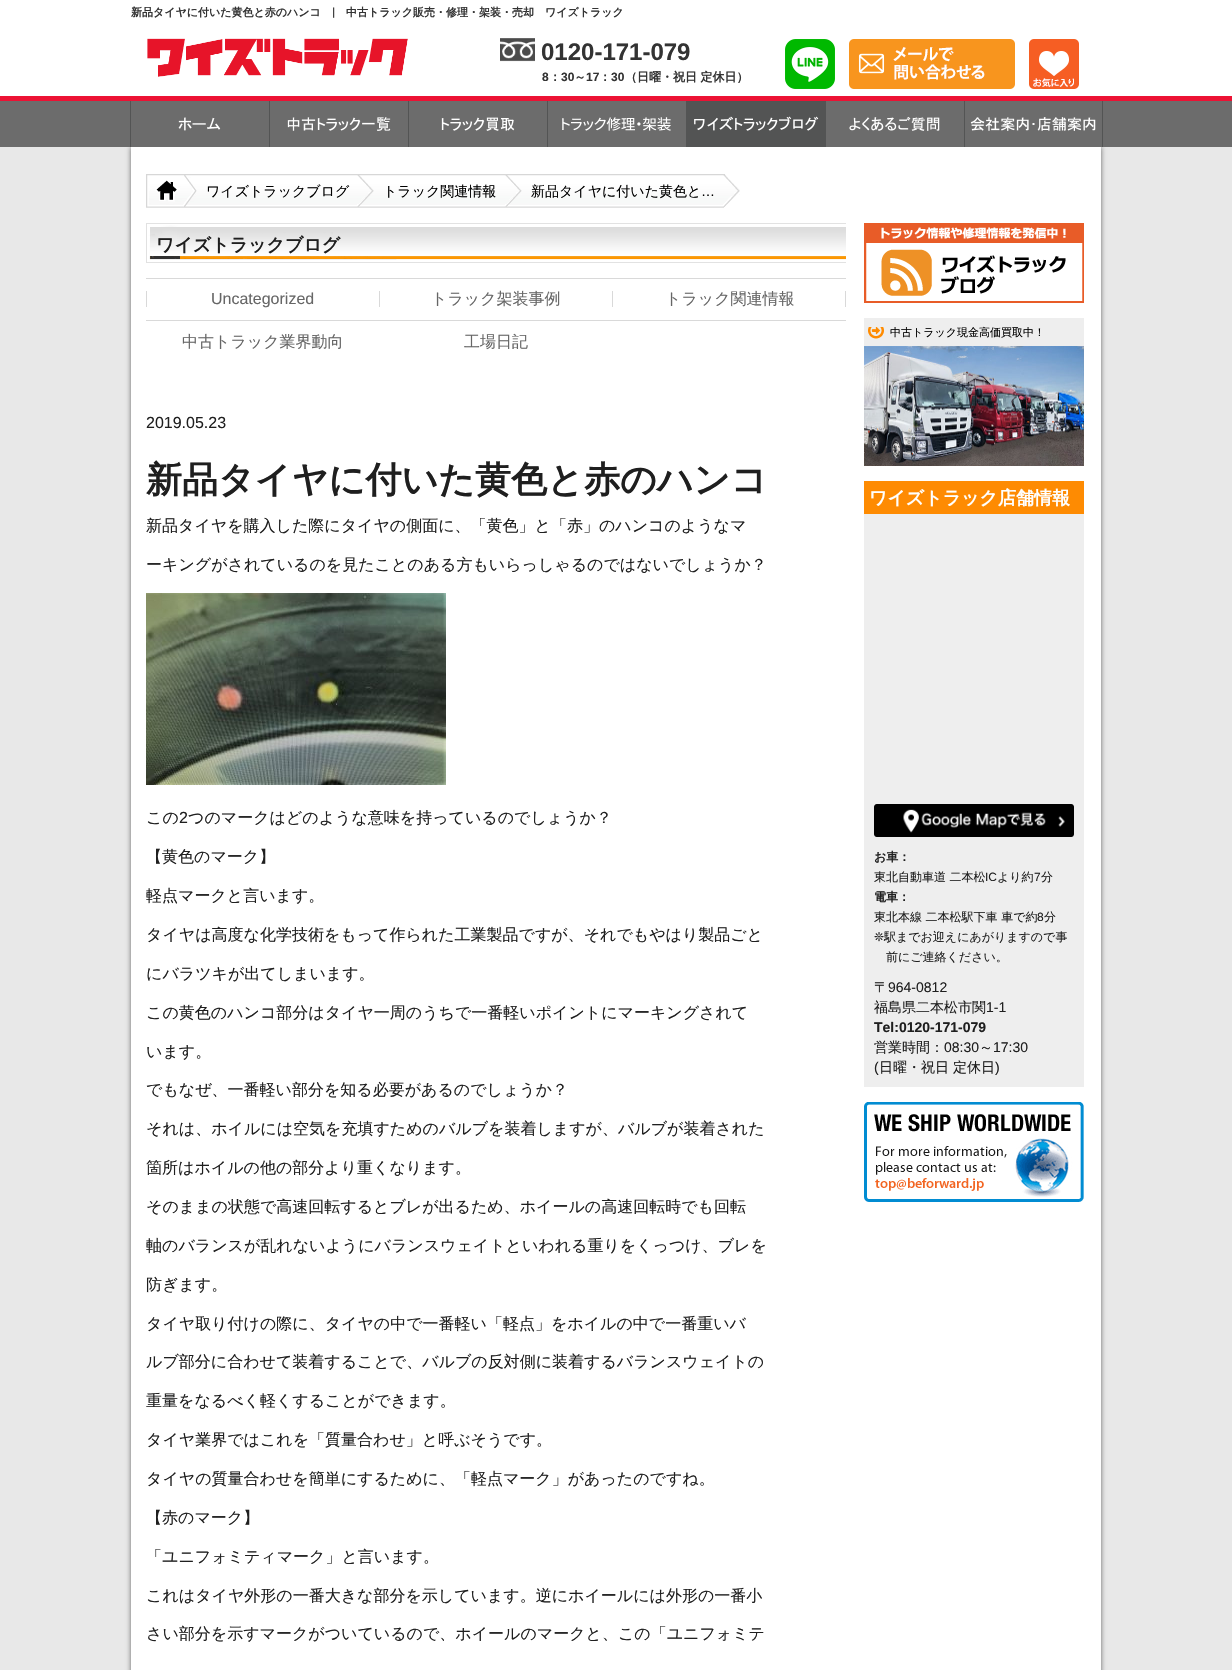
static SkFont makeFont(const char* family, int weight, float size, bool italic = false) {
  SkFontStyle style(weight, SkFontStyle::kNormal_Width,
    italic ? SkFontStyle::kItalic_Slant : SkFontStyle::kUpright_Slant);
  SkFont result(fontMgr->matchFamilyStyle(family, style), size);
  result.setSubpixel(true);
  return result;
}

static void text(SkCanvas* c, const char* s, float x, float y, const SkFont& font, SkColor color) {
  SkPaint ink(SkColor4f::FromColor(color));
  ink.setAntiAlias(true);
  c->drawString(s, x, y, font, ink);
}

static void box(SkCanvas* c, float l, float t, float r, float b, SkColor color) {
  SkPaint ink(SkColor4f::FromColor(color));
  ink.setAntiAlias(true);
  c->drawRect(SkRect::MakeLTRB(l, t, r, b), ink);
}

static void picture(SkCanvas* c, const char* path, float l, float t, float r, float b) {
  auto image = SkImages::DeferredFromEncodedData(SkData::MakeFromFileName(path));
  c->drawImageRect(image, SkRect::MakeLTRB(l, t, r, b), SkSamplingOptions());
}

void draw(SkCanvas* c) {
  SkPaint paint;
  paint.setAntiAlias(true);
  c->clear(0xffe8e8e8);
  box(c, 0, 0, 1232, 96, 0xffffffff);
  box(c, 0, 96, 1232, 101, 0xffec1234);
  SkFont face1 = makeFont("WenQuanYi Zen Hei", 700, 11);
  text(c, "新品タイヤに付いた黄色と赤のハンコ", 131, 16, face1, 0xff333333);
  SkFont face2 = makeFont("Lato", 700, 11);
  text(c, "|", 332, 16, face2, 0xff333333);
  text(c, "中古トラック販売・修理・架装・売却　ワイズトラック", 346, 16, face1, 0xff333333);
  picture(c, "img_01.png", 147, 38, 408, 77);
  picture(c, "img_02.png", 500, 38, 535, 62);
  SkFont face3 = makeFont("Liberation Sans", 700, 24);
  text(c, "0120-171-079", 541, 60, face3, 0xff333333);
  SkFont face4 = makeFont("Liberation Sans", 700, 12);
  text(c, "8", 542, 81, face4, 0xff333333);
  SkFont face5 = makeFont("WenQuanYi Zen Hei", 700, 12);
  text(c, "：", 549, 81, face5, 0xff333333);
  text(c, "30", 561, 81, face4, 0xff333333);
  text(c, "～", 574, 81, face5, 0xff333333);
  text(c, "17", 586, 81, face4, 0xff333333);
  text(c, "：", 599, 81, face5, 0xff333333);
  text(c, "30", 611, 81, face4, 0xff333333);
  text(c, "（日曜・祝日 定休日）", 625, 81, face5, 0xff333333);
  picture(c, "img_03.png", 785, 39, 835, 89);
  picture(c, "img_04.png", 849, 39, 1015, 89);
  picture(c, "img_05.png", 1029, 39, 1079, 89);
  box(c, 0, 101, 1232, 147, 0xff6c6c6c);
  paint.setColor(0xff666666);
  paint.setMaskFilter(SkMaskFilter::MakeBlur(kNormal_SkBlurStyle, 2.5f));
  c->drawRect(SkRect::MakeLTRB(131, 147, 1101, 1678), paint);
  paint.setMaskFilter(nullptr);
  picture(c, "img_06.png", 130, 101, 131, 147);
  picture(c, "img_07.png", 131, 101, 269, 147);
  picture(c, "img_06.png", 269, 101, 270, 147);
  picture(c, "img_08.png", 270, 101, 408, 147);
  picture(c, "img_06.png", 408, 101, 409, 147);
  picture(c, "img_09.png", 409, 101, 547, 147);
  picture(c, "img_06.png", 547, 101, 548, 147);
  picture(c, "img_10.png", 548, 101, 686, 147);
  picture(c, "img_11.png", 686, 101, 825, 147);
  picture(c, "img_06.png", 825, 101, 826, 147);
  picture(c, "img_12.png", 826, 101, 964, 147);
  picture(c, "img_13.png", 964, 101, 1103, 147);
  picture(c, "img_14.png", 965, 101, 1102, 147);
  box(c, 131, 147, 1101, 1670, 0xffffffff);
  picture(c, "img_19.png", 506, 174, 740, 208);
  picture(c, "img_18.png", 358, 174, 522, 208);
  picture(c, "img_17.png", 181, 174, 374, 208);
  picture(c, "img_15.png", 146, 174, 197, 208);
  picture(c, "img_16.png", 146, 175, 196, 207);
  SkFont face6 = makeFont("WenQuanYi Zen Hei", 500, 14);
  text(c, "ワイズトラックブログ", 206, 196, face6, 0xff000000);
  text(c, "トラック関連情報", 383, 196, face6, 0xff000000);
  text(c, "新品タイヤに付いた黄色と", 531, 196, face6, 0xff000000);
  SkFont face7 = makeFont("Liberation Sans", 400, 14);
  text(c, "…", 701, 196, face7, 0xff000000);
  picture(c, "img_20.png", 146, 223, 846, 263);
  SkFont face8 = makeFont("WenQuanYi Zen Hei", 700, 18);
  text(c, "ワイズトラックブログ", 156, 251, face8, 0xff1f1f1f);
  picture(c, "img_21.png", 146, 278, 846, 321);
  SkFont face9 = makeFont("Liberation Sans", 400, 16);
  text(c, "Uncategorized", 211, 304, face9, 0xff666666);
  SkFont face10 = makeFont("WenQuanYi Zen Hei", 500, 16);
  text(c, "トラック架装事例", 431, 304, face10, 0xff666666);
  text(c, "トラック関連情報", 665, 304, face10, 0xff666666);
  text(c, "中古トラック業界動向", 182, 347, face10, 0xff666666);
  text(c, "工場日記", 464, 347, face10, 0xff666666);
  text(c, "2019.05.23", 146, 428, face9, 0xff1f1f1f);
  SkFont face11 = makeFont("WenQuanYi Zen Hei", 700, 36);
  text(c, "新品タイヤに付いた黄色と赤のハンコ", 146, 492, face11, 0xff1f1f1f);
  text(c, "新品タイヤを購入した際にタイヤの側面に、「黄色」と「赤」のハンコのようなマ", 146, 531, face10, 0xff1f1f1f);
  text(c, "ーキングがされているのを見たことのある方もいらっしゃるのではないでしょうか？", 146, 570, face10, 0xff1f1f1f);
  picture(c, "img_22.png", 146, 593, 446, 785);
  text(c, "この", 146, 823, face10, 0xff1f1f1f);
  text(c, "2", 179, 823, face9, 0xff1f1f1f);
  text(c, "つのマークはどのような意味を持っているのでしょうか？", 188, 823, face10, 0xff1f1f1f);
  text(c, "【黄色のマーク】", 146, 862, face10, 0xff1f1f1f);
  text(c, "軽点マークと言います。", 146, 901, face10, 0xff1f1f1f);
  text(c, "タイヤは高度な化学技術をもって作られた工業製品ですが、それでもやはり製品ごと", 146, 940, face10, 0xff1f1f1f);
  text(c, "にバラツキが出てしまいます。", 146, 979, face10, 0xff1f1f1f);
  text(c, "この黄色のハンコ部分はタイヤ一周のうちで一番軽いポイントにマーキングされて", 146, 1018, face10, 0xff1f1f1f);
  text(c, "います。", 146, 1057, face10, 0xff1f1f1f);
  text(c, "でもなぜ、一番軽い部分を知る必要があるのでしょうか？", 146, 1095, face10, 0xff1f1f1f);
  text(c, "それは、ホイルには空気を充填すためのバルブを装着しますが、バルブが装着された", 146, 1134, face10, 0xff1f1f1f);
  text(c, "箇所はホイルの他の部分より重くなります。", 146, 1173, face10, 0xff1f1f1f);
  text(c, "そのままの状態で高速回転するとブレが出るため、ホイールの高速回転時でも回転", 146, 1212, face10, 0xff1f1f1f);
  text(c, "軸のバランスが乱れないようにバランスウェイトといわれる重りをくっつけ、ブレを", 146, 1251, face10, 0xff1f1f1f);
  text(c, "防ぎます。", 146, 1290, face10, 0xff1f1f1f);
  text(c, "タイヤ取り付けの際に、タイヤの中で一番軽い「軽点」をホイルの中で一番重いバ", 146, 1329, face10, 0xff1f1f1f);
  text(c, "ルブ部分に合わせて装着することで、バルブの反対側に装着するバランスウェイトの", 146, 1367, face10, 0xff1f1f1f);
  text(c, "重量をなるべく軽くすることができます。", 146, 1406, face10, 0xff1f1f1f);
  text(c, "タイヤ業界ではこれを「質量合わせ」と呼ぶそうです。", 146, 1445, face10, 0xff1f1f1f);
  text(c, "タイヤの質量合わせを簡単にするために、「軽点マーク」があったのですね。", 146, 1484, face10, 0xff1f1f1f);
  text(c, "【赤のマーク】", 146, 1523, face10, 0xff1f1f1f);
  text(c, "「ユニフォミティマーク」と言います。", 146, 1562, face10, 0xff1f1f1f);
  text(c, "これはタイヤ外形の一番大きな部分を示しています。逆にホイールには外形の一番小", 146, 1601, face10, 0xff1f1f1f);
  text(c, "さい部分を示すマークがついているので、ホイールのマークと、この「ユニフォミテ", 146, 1639, face10, 0xff1f1f1f);
  picture(c, "img_23.png", 864, 223, 1084, 303);
  box(c, 864, 318, 1084, 346, 0xffeeeeee);
  picture(c, "img_24.png", 868, 327, 884, 339);
  SkFont face12 = makeFont("WenQuanYi Zen Hei", 500, 11);
  text(c, "中古トラック現金高価買取中！", 890, 336, face12, 0xff000000);
  picture(c, "img_25.png", 864, 346, 1084, 466);
  box(c, 864, 481, 1084, 514, 0xfffe8b02);
  text(c, "ワイズトラック店舗情報", 869, 504, face8, 0xffffffff);
  box(c, 864, 514, 1084, 1087, 0xffeeeeee);
  picture(c, "img_26.png", 874, 804, 1074, 837);
  text(c, "お車：", 874, 861, face5, 0xff1f1f1f);
  SkFont face13 = makeFont("WenQuanYi Zen Hei", 500, 12);
  text(c, "東北自動車道 二本松", 874, 881, face13, 0xff1f1f1f);
  SkFont face14 = makeFont("Liberation Sans", 400, 12);
  text(c, "IC", 985, 881, face14, 0xff1f1f1f);
  text(c, "より約", 997, 881, face13, 0xff1f1f1f);
  text(c, "7", 1034, 881, face14, 0xff1f1f1f);
  text(c, "分", 1041, 881, face13, 0xff1f1f1f);
  text(c, "電車：", 874, 901, face5, 0xff1f1f1f);
  text(c, "東北本線 二本松駅下車 車で約", 874, 921, face13, 0xff1f1f1f);
  text(c, "8", 1037, 921, face14, 0xff1f1f1f);
  text(c, "分", 1044, 921, face13, 0xff1f1f1f);
  SkFont face15 = makeFont("DejaVu Sans", 400, 12);
  text(c, "❊", 874, 941, face15, 0xff1f1f1f);
  text(c, "駅までお迎えにあがりますので事", 884, 941, face13, 0xff1f1f1f);
  text(c, "前にご連絡ください。", 886, 961, face13, 0xff1f1f1f);
  text(c, "〒", 874, 992, face6, 0xff1f1f1f);
  text(c, "964-0812", 888, 992, face7, 0xff1f1f1f);
  text(c, "福島県二本松市関", 874, 1012, face6, 0xff1f1f1f);
  text(c, "1-1", 986, 1012, face7, 0xff1f1f1f);
  SkFont face16 = makeFont("Liberation Sans", 700, 14);
  text(c, "Tel:0120-171-079", 874, 1032, face16, 0xff1f1f1f);
  text(c, "営業時間：", 874, 1052, face6, 0xff1f1f1f);
  text(c, "08:30", 944, 1052, face7, 0xff1f1f1f);
  text(c, "～", 979, 1052, face6, 0xff1f1f1f);
  text(c, "17:30", 993, 1052, face7, 0xff1f1f1f);
  text(c, "(", 874, 1072, face7, 0xff1f1f1f);
  text(c, "日曜・祝日", 879, 1072, face6, 0xff1f1f1f);
  text(c, "定休日", 953, 1072, face6, 0xff1f1f1f);
  text(c, ")", 995, 1072, face7, 0xff1f1f1f);
  picture(c, "img_27.png", 864, 1102, 1084, 1202);
}
